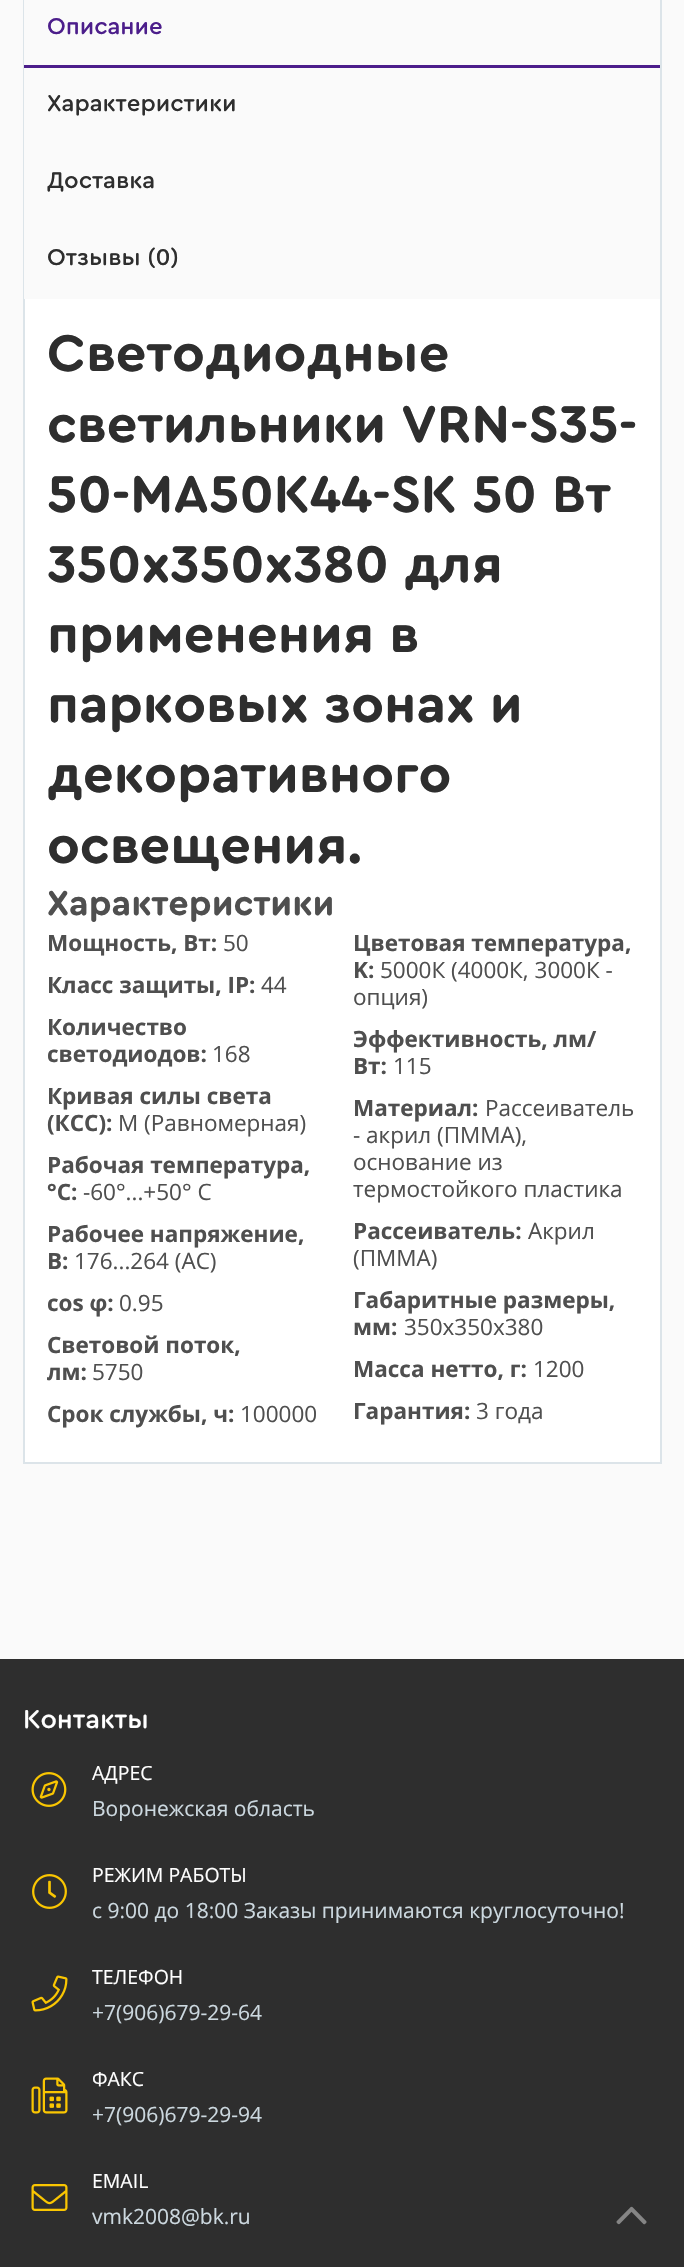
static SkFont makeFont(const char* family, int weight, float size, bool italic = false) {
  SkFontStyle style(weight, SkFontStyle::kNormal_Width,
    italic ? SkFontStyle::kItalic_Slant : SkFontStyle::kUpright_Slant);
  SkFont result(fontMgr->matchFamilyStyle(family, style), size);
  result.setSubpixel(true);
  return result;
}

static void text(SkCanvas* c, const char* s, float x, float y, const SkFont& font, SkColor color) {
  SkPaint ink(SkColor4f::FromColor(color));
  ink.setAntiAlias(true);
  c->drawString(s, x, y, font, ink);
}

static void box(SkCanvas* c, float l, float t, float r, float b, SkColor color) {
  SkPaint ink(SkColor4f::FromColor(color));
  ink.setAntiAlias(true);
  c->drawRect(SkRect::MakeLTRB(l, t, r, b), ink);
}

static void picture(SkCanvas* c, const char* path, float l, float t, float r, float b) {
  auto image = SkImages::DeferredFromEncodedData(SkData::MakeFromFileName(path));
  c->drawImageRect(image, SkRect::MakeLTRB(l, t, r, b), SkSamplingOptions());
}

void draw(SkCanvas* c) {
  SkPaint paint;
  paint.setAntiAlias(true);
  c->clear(0xfffafafa);
  box(c, 25, 299, 660, 1462, 0xffffffff);
  paint.setStyle(SkPaint::kStroke_Style);
  paint.setStrokeWidth(2);
  paint.setColor(0xffdce4e9);
  c->drawRect(SkRect::MakeLTRB(24, -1, 661, 1463), paint);
  box(c, 24, 0, 25, 299, 0xfffafafa);
  box(c, 24, 65, 660, 68, 0xff4c1e8b);
  SkFont face1 = makeFont("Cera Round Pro", 500, 24);
  text(c, "Описание", 47, 34, face1, 0xff4c1e8b);
  text(c, "Характеристики", 47, 111, face1, 0xff2e2e2e);
  text(c, "Доставка", 47, 188, face1, 0xff2e2e2e);
  text(c, "Отзывы (0)", 47, 265, face1, 0xff2e2e2e);
  SkFont face2 = makeFont("Cera Round Pro", 700, 54);
  text(c, "Светодиодные", 47, 371, face2, 0xff2e2e2e);
  text(c, "светильники VRN-S35-", 47, 442, face2, 0xff2e2e2e);
  text(c, "50-MA50K44-SK 50 Вт", 47, 512, face2, 0xff2e2e2e);
  text(c, "350х350х380 для", 47, 582, face2, 0xff2e2e2e);
  text(c, "применения в", 47, 652, face2, 0xff2e2e2e);
  text(c, "парковых зонах и", 47, 722, face2, 0xff2e2e2e);
  text(c, "декоративного", 47, 792, face2, 0xff2e2e2e);
  text(c, "освещения.", 47, 863, face2, 0xff2e2e2e);
  SkFont face3 = makeFont("Cera Round Pro", 700, 36);
  text(c, "Характеристики", 47, 915, face3, 0xff4f4f4f);
  SkFont face4 = makeFont("Open Sans", 700, 22.5f);
  text(c, "Мощность, Вт:", 47, 951, face4, 0xff4f4f4f);
  SkFont face5 = makeFont("Open Sans", 400, 22.5f);
  text(c, "50", 223, 951, face5, 0xff4f4f4f);
  text(c, "Цветовая температура,", 353, 951, face4, 0xff4f4f4f);
  text(c, "K:", 353, 978, face4, 0xff4f4f4f);
  text(c, "5000К (4000К, 3000К -", 380, 978, face5, 0xff4f4f4f);
  text(c, "опция)", 353, 1005, face5, 0xff4f4f4f);
  text(c, "Класс защиты, IP:", 47, 993, face4, 0xff4f4f4f);
  text(c, "44", 261, 993, face5, 0xff4f4f4f);
  text(c, "Количество", 47, 1035, face4, 0xff4f4f4f);
  text(c, "светодиодов:", 47, 1062, face4, 0xff4f4f4f);
  text(c, "168", 212, 1062, face5, 0xff4f4f4f);
  text(c, "Эффективность, лм/", 353, 1047, face4, 0xff4f4f4f);
  text(c, "Вт:", 353, 1074, face4, 0xff4f4f4f);
  text(c, "115", 393, 1074, face5, 0xff4f4f4f);
  text(c, "Кривая силы света", 47, 1104, face4, 0xff4f4f4f);
  text(c, "(КСС):", 47, 1131, face4, 0xff4f4f4f);
  text(c, "М (Равномерная)", 118, 1131, face5, 0xff4f4f4f);
  text(c, "Материал:", 353, 1116, face4, 0xff4f4f4f);
  text(c, "Рассеиватель", 485, 1116, face5, 0xff4f4f4f);
  text(c, "- акрил (ПММА),", 353, 1143, face5, 0xff4f4f4f);
  text(c, "основание из", 353, 1170, face5, 0xff4f4f4f);
  text(c, "термостойкого пластика", 353, 1197, face5, 0xff4f4f4f);
  text(c, "Рабочая температура,", 47, 1173, face4, 0xff4f4f4f);
  text(c, "°C:", 47, 1200, face4, 0xff4f4f4f);
  text(c, "-60°...+50° С", 83, 1200, face5, 0xff4f4f4f);
  text(c, "Рабочее напряжение,", 47, 1242, face4, 0xff4f4f4f);
  text(c, "В:", 47, 1269, face4, 0xff4f4f4f);
  text(c, "176...264 (AС)", 74, 1269, face5, 0xff4f4f4f);
  text(c, "Рассеиватель:", 353, 1239, face4, 0xff4f4f4f);
  text(c, "Акрил", 528, 1239, face5, 0xff4f4f4f);
  text(c, "(ПММА)", 353, 1266, face5, 0xff4f4f4f);
  text(c, "сos φ:", 47, 1311, face4, 0xff4f4f4f);
  text(c, "0.95", 119, 1311, face5, 0xff4f4f4f);
  text(c, "Габаритные размеры,", 353, 1308, face4, 0xff4f4f4f);
  text(c, "мм:", 353, 1335, face4, 0xff4f4f4f);
  text(c, "350х350х380", 404, 1335, face5, 0xff4f4f4f);
  text(c, "Световой поток,", 47, 1353, face4, 0xff4f4f4f);
  text(c, "лм:", 47, 1380, face4, 0xff4f4f4f);
  text(c, "5750", 92, 1380, face5, 0xff4f4f4f);
  text(c, "Масса нетто, г:", 353, 1377, face4, 0xff4f4f4f);
  text(c, "1200", 533, 1377, face5, 0xff4f4f4f);
  text(c, "Срок службы, ч:", 47, 1422, face4, 0xff4f4f4f);
  text(c, "100000", 240, 1422, face5, 0xff4f4f4f);
  text(c, "Гарантия:", 353, 1419, face4, 0xff4f4f4f);
  text(c, "3 года", 476, 1419, face5, 0xff4f4f4f);
  box(c, 0, 1659, 684, 2267, 0xff2e2e2e);
  SkFont face6 = makeFont("Cera Round Pro", 500, 27);
  text(c, "Контакты", 23, 1728, face6, 0xffffffff);
  picture(c, "img_01.png", 31, 1772, 67, 1807);
  SkFont face7 = makeFont("Open Sans", 400, 19.5f);
  text(c, "АДРЕС", 92, 1780, face7, 0xffffffff);
  SkFont face8 = makeFont("Open Sans", 400, 21);
  text(c, "Воронежская область", 92, 1816, face8, 0xffccd8df);
  picture(c, "img_02.png", 32, 1874, 67, 1909);
  text(c, "РЕЖИМ РАБОТЫ", 92, 1882, face7, 0xffffffff);
  text(c, "с 9:00 до 18:00 Заказы принимаются круглосуточно!", 92, 1918, face8, 0xffccd8df);
  picture(c, "img_03.png", 31, 1975, 68, 2012);
  text(c, "ТЕЛЕФОН", 92, 1984, face7, 0xffffffff);
  text(c, "+7(906)679-29-64", 92, 2020, face8, 0xffccd8df);
  picture(c, "img_04.png", 31, 2077, 68, 2114);
  text(c, "ФАКС", 92, 2086, face7, 0xffffffff);
  text(c, "+7(906)679-29-94", 92, 2122, face8, 0xffccd8df);
  picture(c, "img_05.png", 31, 2184, 68, 2211);
  text(c, "EMAIL", 92, 2188, face7, 0xffffffff);
  text(c, "vmk2008@bk.ru", 92, 2224, face8, 0xffccd8df);
  picture(c, "img_06.png", 616, 2206, 647, 2225);
}
